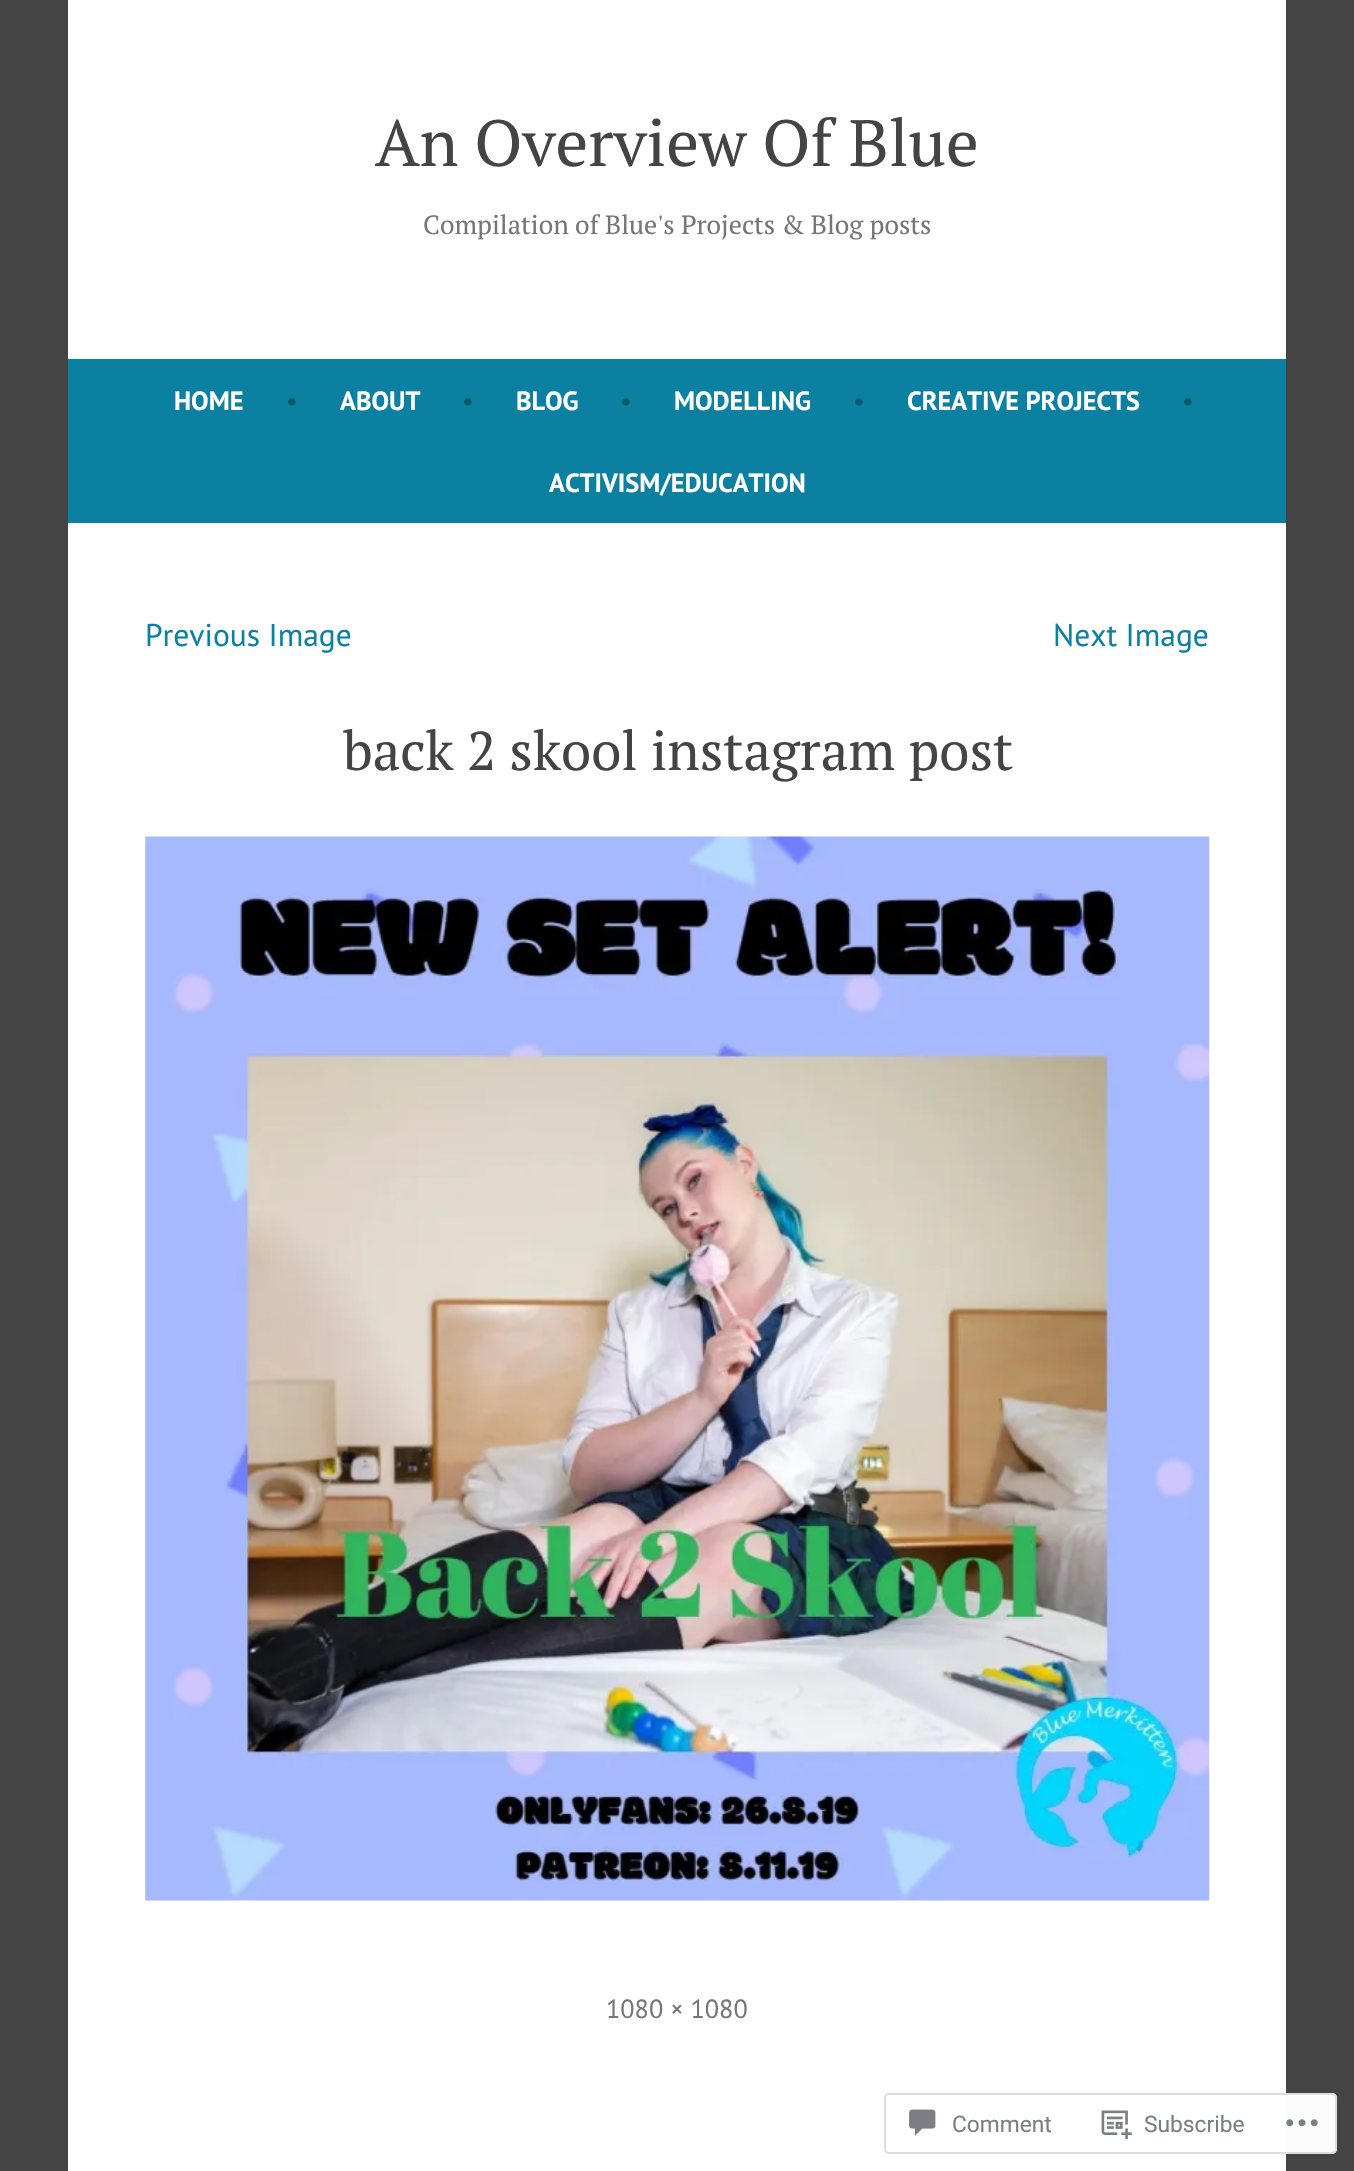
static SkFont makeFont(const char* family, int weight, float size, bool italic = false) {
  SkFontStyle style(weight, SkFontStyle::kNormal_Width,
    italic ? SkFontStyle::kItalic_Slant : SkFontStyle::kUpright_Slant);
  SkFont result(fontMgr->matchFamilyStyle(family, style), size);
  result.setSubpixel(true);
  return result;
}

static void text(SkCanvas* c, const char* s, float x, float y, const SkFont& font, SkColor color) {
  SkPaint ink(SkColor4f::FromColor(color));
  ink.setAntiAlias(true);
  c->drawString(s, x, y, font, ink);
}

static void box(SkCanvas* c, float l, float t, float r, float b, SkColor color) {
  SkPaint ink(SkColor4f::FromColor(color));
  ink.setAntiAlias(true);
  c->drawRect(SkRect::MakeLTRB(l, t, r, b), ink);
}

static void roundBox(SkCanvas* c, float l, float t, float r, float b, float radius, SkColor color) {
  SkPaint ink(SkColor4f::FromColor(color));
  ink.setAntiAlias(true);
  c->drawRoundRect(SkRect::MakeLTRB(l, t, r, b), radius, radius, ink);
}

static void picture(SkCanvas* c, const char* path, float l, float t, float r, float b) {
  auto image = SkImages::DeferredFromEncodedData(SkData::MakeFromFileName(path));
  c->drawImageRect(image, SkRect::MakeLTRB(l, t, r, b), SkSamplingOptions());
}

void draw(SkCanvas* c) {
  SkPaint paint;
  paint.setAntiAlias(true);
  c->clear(0xff444444);
  box(c, 68, 0, 1286, 2171, 0xffffffff);
  SkFont face1 = makeFont("PT Serif", 400, 65.25f);
  text(c, "An Overview Of Blue", 375, 166, face1, 0xff444444);
  SkFont face2 = makeFont("PT Serif", 400, 26.25f);
  text(c, "Compilation of Blue's Projects & Blog posts", 423, 234, face2, 0xff767676);
  box(c, 68, 359, 1286, 523, 0xff0c80a1);
  SkFont face3 = makeFont("PT Sans", 700, 26.25f);
  text(c, "HOME", 174, 410, face3, 0xffffffff);
  SkFont face4 = makeFont("PT Sans", 400, 26.25f);
  text(c, "•", 286, 410, face4, 0xff085a72);
  text(c, "ABOUT", 340, 410, face3, 0xffffffff);
  text(c, "•", 462, 410, face4, 0xff085a72);
  text(c, "BLOG", 516, 410, face3, 0xffffffff);
  text(c, "•", 620, 410, face4, 0xff085a72);
  text(c, "MODELLING", 674, 410, face3, 0xffffffff);
  text(c, "•", 853, 410, face4, 0xff085a72);
  text(c, "CREATIVE PROJECTS", 907, 410, face3, 0xffffffff);
  text(c, "•", 1182, 410, face4, 0xff085a72);
  text(c, "ACTIVISM/EDUCATION", 549, 492, face3, 0xffffffff);
  SkFont face5 = makeFont("PT Sans", 400, 31.5f);
  text(c, "Previous Image", 145, 646, face5, 0xff0c80a1);
  text(c, "Next Image", 1053, 646, face5, 0xff0c80a1);
  SkFont face6 = makeFont("PT Serif", 400, 54.5f);
  text(c, "back 2 skool instagram post", 343, 770, face6, 0xff444444);
  picture(c, "img_01.png", 145, 836, 1210, 1901);
  text(c, "1080 × 1080", 606, 2018, face4, 0xff767676);
  roundBox(c, 884, 2093, 1337, 2154, 5, 0xfaffffff);
  paint.setStyle(SkPaint::kStroke_Style);
  paint.setStrokeWidth(2);
  paint.setColor(0xfadcdcde);
  c->drawRoundRect(SkRect::MakeLTRB(885, 2094, 1336, 2153), 4, 4, paint);
  picture(c, "img_02.png", 909, 2109, 936, 2136);
  SkFont face7 = makeFont("Roboto", 400, 22.75f);
  text(c, "Comment", 952, 2132, face7, 0xff7b7f85);
  picture(c, "img_03.png", 1101, 2110, 1132, 2139);
  text(c, "Subscribe", 1144, 2132, face7, 0xff7b7f85);
  picture(c, "img_04.png", 1286, 2119, 1318, 2127);
}
